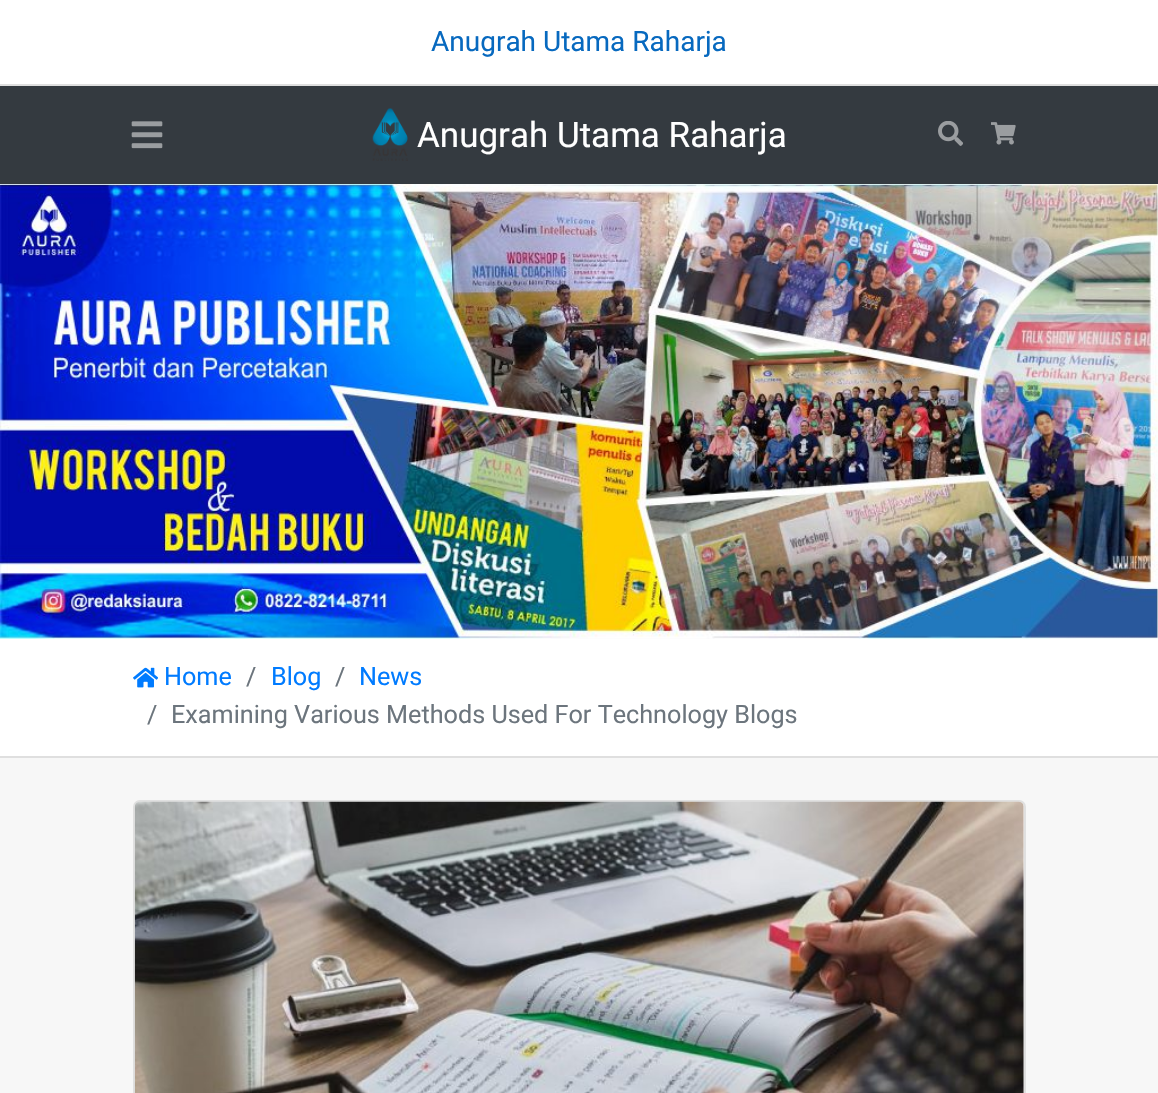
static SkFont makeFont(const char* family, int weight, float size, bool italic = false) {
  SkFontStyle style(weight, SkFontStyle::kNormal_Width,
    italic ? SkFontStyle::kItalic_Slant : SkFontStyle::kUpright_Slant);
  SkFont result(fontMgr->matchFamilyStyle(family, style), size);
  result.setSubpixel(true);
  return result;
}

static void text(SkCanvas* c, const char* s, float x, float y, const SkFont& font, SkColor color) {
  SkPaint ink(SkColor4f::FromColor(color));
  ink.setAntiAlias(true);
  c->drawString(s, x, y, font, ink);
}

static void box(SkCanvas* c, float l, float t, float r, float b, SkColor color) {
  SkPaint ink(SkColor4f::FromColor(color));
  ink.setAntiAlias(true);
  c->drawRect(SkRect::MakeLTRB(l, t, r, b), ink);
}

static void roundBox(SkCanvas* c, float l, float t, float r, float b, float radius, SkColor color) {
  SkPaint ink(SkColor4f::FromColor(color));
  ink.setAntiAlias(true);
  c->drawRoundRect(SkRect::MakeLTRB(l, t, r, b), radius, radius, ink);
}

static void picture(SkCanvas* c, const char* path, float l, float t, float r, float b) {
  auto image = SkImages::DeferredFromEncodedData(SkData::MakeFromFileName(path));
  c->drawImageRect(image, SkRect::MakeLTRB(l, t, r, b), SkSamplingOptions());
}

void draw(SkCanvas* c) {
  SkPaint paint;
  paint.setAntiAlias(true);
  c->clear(0xfff7f7f7);
  box(c, 0, 0, 1158, 84, 0xffffffff);
  box(c, 0, 84, 1158, 86, 0xffdfdfdf);
  SkFont face1 = makeFont("Roboto", 400, 28);
  text(c, "Anugrah Utama Raharja", 431, 51, face1, 0xff0769bf);
  box(c, 0, 86, 1158, 184, 0xff343a40);
  picture(c, "img_01.png", 131, 121, 163, 149);
  picture(c, "img_02.png", 372, 108, 408, 161);
  SkFont face2 = makeFont("Roboto", 400, 35);
  text(c, "Anugrah Utama Raharja", 417, 147, face2, 0xffffffff);
  picture(c, "img_03.png", 938, 121, 963, 146);
  picture(c, "img_04.png", 991, 122, 1016, 145);
  picture(c, "img_05.png", 0, 184, 1158, 639);
  box(c, 0, 639, 1158, 756, 0xffffffff);
  box(c, 0, 756, 1158, 758, 0xffdfdfdf);
  picture(c, "img_06.png", 133, 667, 158, 688);
  SkFont face3 = makeFont("Roboto", 400, 25.2f);
  text(c, "Home", 164, 685, face3, 0xff007bff);
  text(c, "/", 246, 685, face3, 0xff6c757d);
  text(c, "Blog", 271, 685, face3, 0xff007bff);
  text(c, "/", 335, 685, face3, 0xff6c757d);
  text(c, "News", 359, 685, face3, 0xff007bff);
  text(c, "/", 147, 723, face3, 0xff6c757d);
  text(c, "Examining Various Methods Used For Technology Blogs", 171, 723, face3, 0xff6c757d);
  roundBox(c, 133, 800, 1026, 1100, 7, 0xffffffff);
  paint.setStyle(SkPaint::kStroke_Style);
  paint.setStrokeWidth(2);
  paint.setColor(0x1f000000);
  c->drawRoundRect(SkRect::MakeLTRB(134, 801, 1025, 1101), 6, 6, paint);
  picture(c, "img_07.png", 134, 801, 1024, 1093);
}
